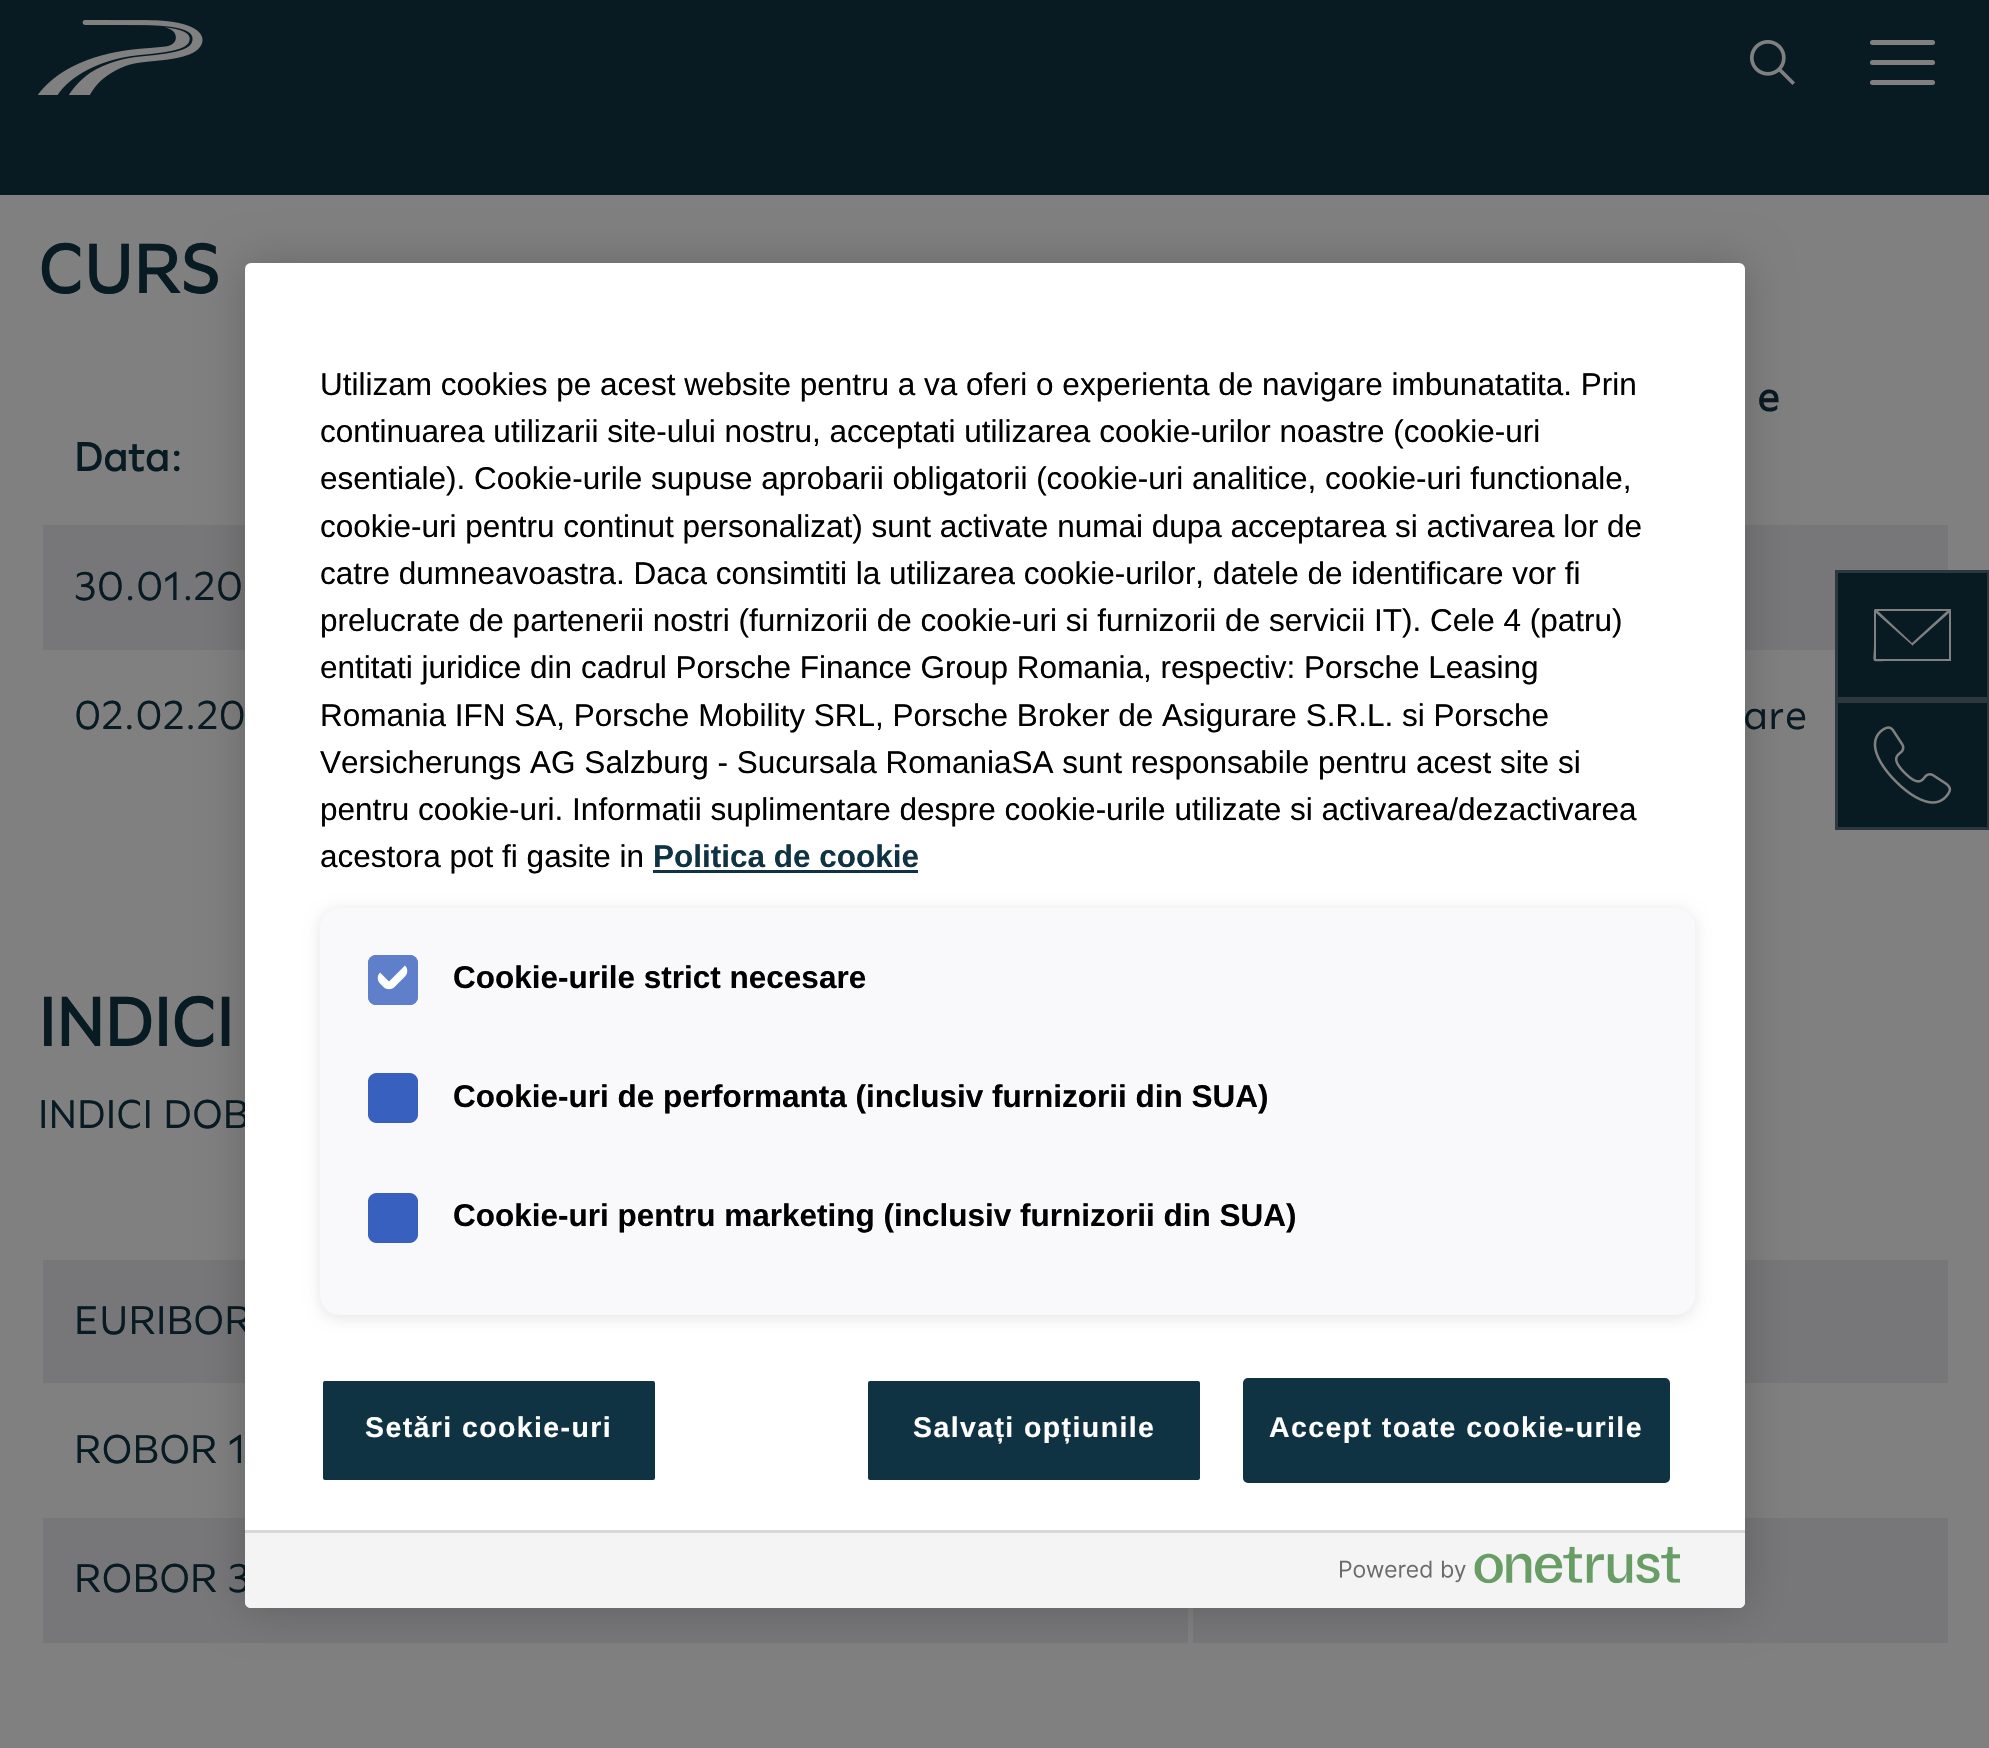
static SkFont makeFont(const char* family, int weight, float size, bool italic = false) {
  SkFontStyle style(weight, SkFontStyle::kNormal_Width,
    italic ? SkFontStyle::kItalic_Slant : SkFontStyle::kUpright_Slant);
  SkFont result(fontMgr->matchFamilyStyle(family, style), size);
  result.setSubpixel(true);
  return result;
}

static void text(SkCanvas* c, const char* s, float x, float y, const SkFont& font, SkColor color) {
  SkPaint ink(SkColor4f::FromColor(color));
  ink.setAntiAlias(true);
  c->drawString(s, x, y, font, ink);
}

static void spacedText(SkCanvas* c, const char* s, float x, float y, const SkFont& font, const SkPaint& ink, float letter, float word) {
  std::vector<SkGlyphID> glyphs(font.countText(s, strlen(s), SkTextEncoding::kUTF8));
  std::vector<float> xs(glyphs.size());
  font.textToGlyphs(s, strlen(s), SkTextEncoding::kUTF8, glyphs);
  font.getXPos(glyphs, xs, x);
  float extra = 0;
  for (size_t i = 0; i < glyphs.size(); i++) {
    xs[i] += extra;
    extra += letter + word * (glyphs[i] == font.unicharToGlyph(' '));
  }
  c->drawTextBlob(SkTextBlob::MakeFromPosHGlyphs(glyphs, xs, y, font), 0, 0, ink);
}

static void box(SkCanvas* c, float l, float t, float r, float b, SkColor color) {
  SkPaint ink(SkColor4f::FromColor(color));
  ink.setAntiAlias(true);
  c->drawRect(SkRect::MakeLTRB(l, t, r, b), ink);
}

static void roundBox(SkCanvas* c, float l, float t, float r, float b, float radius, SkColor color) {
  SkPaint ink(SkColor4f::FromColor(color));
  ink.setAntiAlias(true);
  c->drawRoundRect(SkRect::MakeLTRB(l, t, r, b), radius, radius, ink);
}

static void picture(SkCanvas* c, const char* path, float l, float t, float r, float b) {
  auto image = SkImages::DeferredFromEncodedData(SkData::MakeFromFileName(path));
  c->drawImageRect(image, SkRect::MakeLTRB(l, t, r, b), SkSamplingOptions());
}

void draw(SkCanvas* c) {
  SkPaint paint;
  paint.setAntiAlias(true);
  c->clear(0xff808080);
  box(c, 0, 0, 1989, 195, 0xff081a22);
  picture(c, "img_01.png", 38, 20, 203, 95);
  picture(c, "img_02.png", 1750, 40, 1795, 85);
  roundBox(c, 1870, 40, 1935, 45, 2.5f, 0xff808080);
  roundBox(c, 1870, 60, 1935, 65, 2.5f, 0xff808080);
  roundBox(c, 1870, 80, 1935, 85, 2.5f, 0xff808080);
  SkFont face1 = makeFont("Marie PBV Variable", 700, 68);
  paint.setColor(0xff081a22);
  spacedText(c, "CURS", 38, 293, face1, paint, 0, 9);
  SkFont face2 = makeFont("Marie PBV Variable", 700, 40);
  spacedText(c, "e", 1757, 411, face2, paint, 0, 5);
  text(c, "Data:", 74, 471, face2, 0xff081a22);
  box(c, 43, 525, 245, 650, 0xff777779);
  SkFont face3 = makeFont("Marie PBV Variable", 400, 40);
  text(c, "30.01.20", 74, 600, face3, 0xff081a22);
  box(c, 1745, 525, 1948, 650, 0xff777779);
  text(c, "02.02.20", 74, 729, face3, 0xff081a22);
  text(c, "are", 1743, 729, face3, 0xff081a22);
  spacedText(c, "INDICI", 38, 1046, face1, paint, 0, 25);
  text(c, "INDICI DOB", 38, 1128, face3, 0xff081a22);
  box(c, 43, 1260, 245, 1383, 0xff777779);
  text(c, "EURIBOR", 74, 1334, face3, 0xff081a22);
  box(c, 1745, 1260, 1948, 1383, 0xff777779);
  text(c, "ROBOR 1", 74, 1463, face3, 0xff081a22);
  box(c, 43, 1518, 1188, 1643, 0xff777779);
  text(c, "ROBOR 3", 74, 1592, face3, 0xff081a22);
  box(c, 1193, 1518, 1948, 1643, 0xff777779);
  paint.setColor(0x33000000);
  paint.setMaskFilter(SkMaskFilter::MakeBlur(kNormal_SkBlurStyle, 22.5f));
  c->drawRoundRect(SkRect::MakeLTRB(245, 263, 1745, 1608), 6, 6, paint);
  paint.setMaskFilter(nullptr);
  roundBox(c, 245, 263, 1745, 1608, 6, 0xffffffff);
  SkFont face4 = makeFont("Liberation Sans", 400, 31.5f);
  text(c, "Utilizam cookies pe acest website pentru a va oferi o experienta de navigare imbunatatita. Prin", 320, 395, face4, 0xff000000);
  text(c, "continuarea utilizarii site-ului nostru, acceptati utilizarea cookie-urilor noastre (cookie-uri", 320, 442, face4, 0xff000000);
  text(c, "esentiale). Cookie-urile supuse aprobarii obligatorii (cookie-uri analitice, cookie-uri functionale,", 320, 489, face4, 0xff000000);
  text(c, "cookie-uri pentru continut personalizat) sunt activate numai dupa acceptarea si activarea lor de", 320, 537, face4, 0xff000000);
  text(c, "catre dumneavoastra. Daca consimtiti la utilizarea cookie-urilor, datele de identificare vor fi", 320, 584, face4, 0xff000000);
  text(c, "prelucrate de partenerii nostri (furnizorii de cookie-uri si furnizorii de servicii IT). Cele 4 (patru)", 320, 631, face4, 0xff000000);
  text(c, "entitati juridice din cadrul Porsche Finance Group Romania, respectiv: Porsche Leasing", 320, 678, face4, 0xff000000);
  text(c, "Romania IFN SA, Porsche Mobility SRL, Porsche Broker de Asigurare S.R.L. si Porsche", 320, 726, face4, 0xff000000);
  text(c, "Versicherungs AG Salzburg - Sucursala RomaniaSA sunt responsabile pentru acest site si", 320, 773, face4, 0xff000000);
  text(c, "pentru cookie-uri. Informatii suplimentare despre cookie-urile utilizate si activarea/dezactivarea", 320, 820, face4, 0xff000000);
  text(c, "acestora pot fi gasite in", 320, 867, face4, 0xff000000);
  SkFont face5 = makeFont("Liberation Sans", 700, 31.5f);
  text(c, "Politica de cookie", 653, 867, face5, 0xff103344);
  box(c, 653, 870, 918, 873, 0xff103344);
  paint.setColor(0x1a000000);
  paint.setMaskFilter(SkMaskFilter::MakeBlur(kNormal_SkBlurStyle, 7.5f));
  c->drawRoundRect(SkRect::MakeLTRB(320, 910, 1695, 1318), 20, 20, paint);
  paint.setMaskFilter(nullptr);
  roundBox(c, 320, 908, 1695, 1315, 20, 0xfff9f9fc);
  roundBox(c, 368, 955, 418, 1005, 8, 0xff5f7fca);
  paint.setColor(0xff5f7fca);
  c->drawPath(SkPathBuilder().moveTo(376, 955).lineTo(410, 955).cubicTo(414, 955, 418, 959, 418, 963).lineTo(418, 997).cubicTo(418, 1001, 414, 1005, 410, 1005).lineTo(376, 1005).cubicTo(372, 1005, 368, 1001, 368, 997).lineTo(368, 963).cubicTo(368, 959, 372, 955, 376, 955).close().detach(), paint);
  paint.setColor(0xfffefefe);
  c->drawPath(SkPathBuilder(SkPathFillType::kEvenOdd).moveTo(380, 972.5f).lineTo(390.5f, 962).cubicTo(393.5f, 959, 398.5f, 959, 401.5f, 962).lineTo(405, 965.5f).cubicTo(408, 968.5f, 408, 973.5f, 405, 976.5f).lineTo(394.5f, 987).cubicTo(391.5f, 990, 386.5f, 990, 383.5f, 987).lineTo(380, 983.5f).cubicTo(377, 980.5f, 377, 975.5f, 380, 972.5f).close().moveTo(380, 972.5f).lineTo(390.5f, 962).cubicTo(393.5f, 959, 398.5f, 959, 401.5f, 962).lineTo(405, 965.5f).lineTo(389, 981.5f).close().detach(), paint);
  text(c, "Cookie-urile strict necesare", 453, 988, face5, 0xff000000);
  paint.setColor(0xff3860be);
  c->drawPath(SkPathBuilder().moveTo(376, 1073).lineTo(410, 1073).cubicTo(414, 1073, 418, 1077, 418, 1081).lineTo(418, 1115).cubicTo(418, 1119, 414, 1123, 410, 1123).lineTo(376, 1123).cubicTo(372, 1123, 368, 1119, 368, 1115).lineTo(368, 1081).cubicTo(368, 1077, 372, 1073, 376, 1073).close().detach(), paint);
  text(c, "Cookie-uri de performanta (inclusiv furnizorii din SUA)", 453, 1107, face5, 0xff000000);
  c->drawPath(SkPathBuilder().moveTo(376, 1193).lineTo(410, 1193).cubicTo(414, 1193, 418, 1197, 418, 1201).lineTo(418, 1235).cubicTo(418, 1239, 414, 1243, 410, 1243).lineTo(376, 1243).cubicTo(372, 1243, 368, 1239, 368, 1235).lineTo(368, 1201).cubicTo(368, 1197, 372, 1193, 376, 1193).close().detach(), paint);
  text(c, "Cookie-uri pentru marketing (inclusiv furnizorii din SUA)", 453, 1226, face5, 0xff000000);
  paint.setColor(0xff103344);
  c->drawRoundRect(SkRect::MakeLTRB(321.5f, 1379.5f, 656.5f, 1481.5f), 3.5f, 3.5f, paint);
  paint.setStyle(SkPaint::kStroke_Style);
  paint.setStrokeWidth(3);
  paint.setColor(0xffffffff);
  c->drawRoundRect(SkRect::MakeLTRB(321.5f, 1379.5f, 656.5f, 1481.5f), 3.5f, 3.5f, paint);
  SkFont face6 = makeFont("Liberation Sans", 700, 28.5f);
  paint.setStyle(SkPaint::kFill_Style);
  spacedText(c, "Setări cookie-uri", 365, 1437, face6, paint, 1.4f, 0);
  paint.setColor(0xff103344);
  c->drawRoundRect(SkRect::MakeLTRB(866.5f, 1379.5f, 1201.5f, 1481.5f), 3.5f, 3.5f, paint);
  paint.setStyle(SkPaint::kStroke_Style);
  paint.setColor(0xffffffff);
  c->drawRoundRect(SkRect::MakeLTRB(866.5f, 1379.5f, 1201.5f, 1481.5f), 3.5f, 3.5f, paint);
  paint.setStyle(SkPaint::kFill_Style);
  spacedText(c, "Salvați opțiunile", 913, 1437, face6, paint, 1.4f, 0);
  paint.setColor(0xff103344);
  c->drawRoundRect(SkRect::MakeLTRB(1244.5f, 1379.5f, 1668.5f, 1481.5f), 3.5f, 3.5f, paint);
  paint.setStyle(SkPaint::kStroke_Style);
  c->drawRoundRect(SkRect::MakeLTRB(1244.5f, 1379.5f, 1668.5f, 1481.5f), 3.5f, 3.5f, paint);
  paint.setStyle(SkPaint::kFill_Style);
  paint.setColor(0xffffffff);
  spacedText(c, "Accept toate cookie-urile", 1269, 1437, face6, paint, 1.4f, 0);
  paint.setColor(0xfff4f4f4);
  c->drawPath(SkPathBuilder().moveTo(245, 1530).lineTo(1745, 1530).lineTo(1745, 1602).cubicTo(1745, 1605.5f, 1742.5f, 1608, 1739, 1608).lineTo(251, 1608).cubicTo(247.5f, 1608, 245, 1605.5f, 245, 1602).close().detach(), paint);
  box(c, 245, 1530, 1745, 1533, 0xffd8d8d8);
  picture(c, "img_03.png", 1340, 1546, 1680, 1584);
  paint.setColor(0xff081a22);
  c->drawRect(SkRect::MakeLTRB(1836.5f, 571.5f, 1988.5f, 698.5f), paint);
  paint.setStyle(SkPaint::kStroke_Style);
  paint.setColor(0xff2c383e);
  c->drawRect(SkRect::MakeLTRB(1836.5f, 571.5f, 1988.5f, 698.5f), paint);
  paint.setStyle(SkPaint::kFill_Style);
  paint.setColor(0xff808080);
  c->drawPath(SkPathBuilder().moveTo(1950, 609).cubicTo(1951, 609, 1951, 609, 1951, 610).lineTo(1951, 661).lineTo(1950, 661).lineTo(1888, 661).cubicTo(1869, 661, 1874, 665, 1874, 643).lineTo(1874, 610).lineTo(1875, 609).close().moveTo(1949, 613).lineTo(1913, 645).cubicTo(1913, 646, 1912, 646, 1912, 645).lineTo(1876, 613).lineTo(1876, 659).lineTo(1949, 659).close().moveTo(1947, 611).lineTo(1878, 611).lineTo(1912, 643).close().detach(), paint);
  paint.setColor(0xff081a22);
  c->drawRect(SkRect::MakeLTRB(1836.5f, 701.5f, 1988.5f, 828.5f), paint);
  paint.setStyle(SkPaint::kStroke_Style);
  paint.setColor(0xff2c383e);
  c->drawRect(SkRect::MakeLTRB(1836.5f, 701.5f, 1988.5f, 828.5f), paint);
  picture(c, "img_04.png", 1873, 726, 1952, 804);
}
